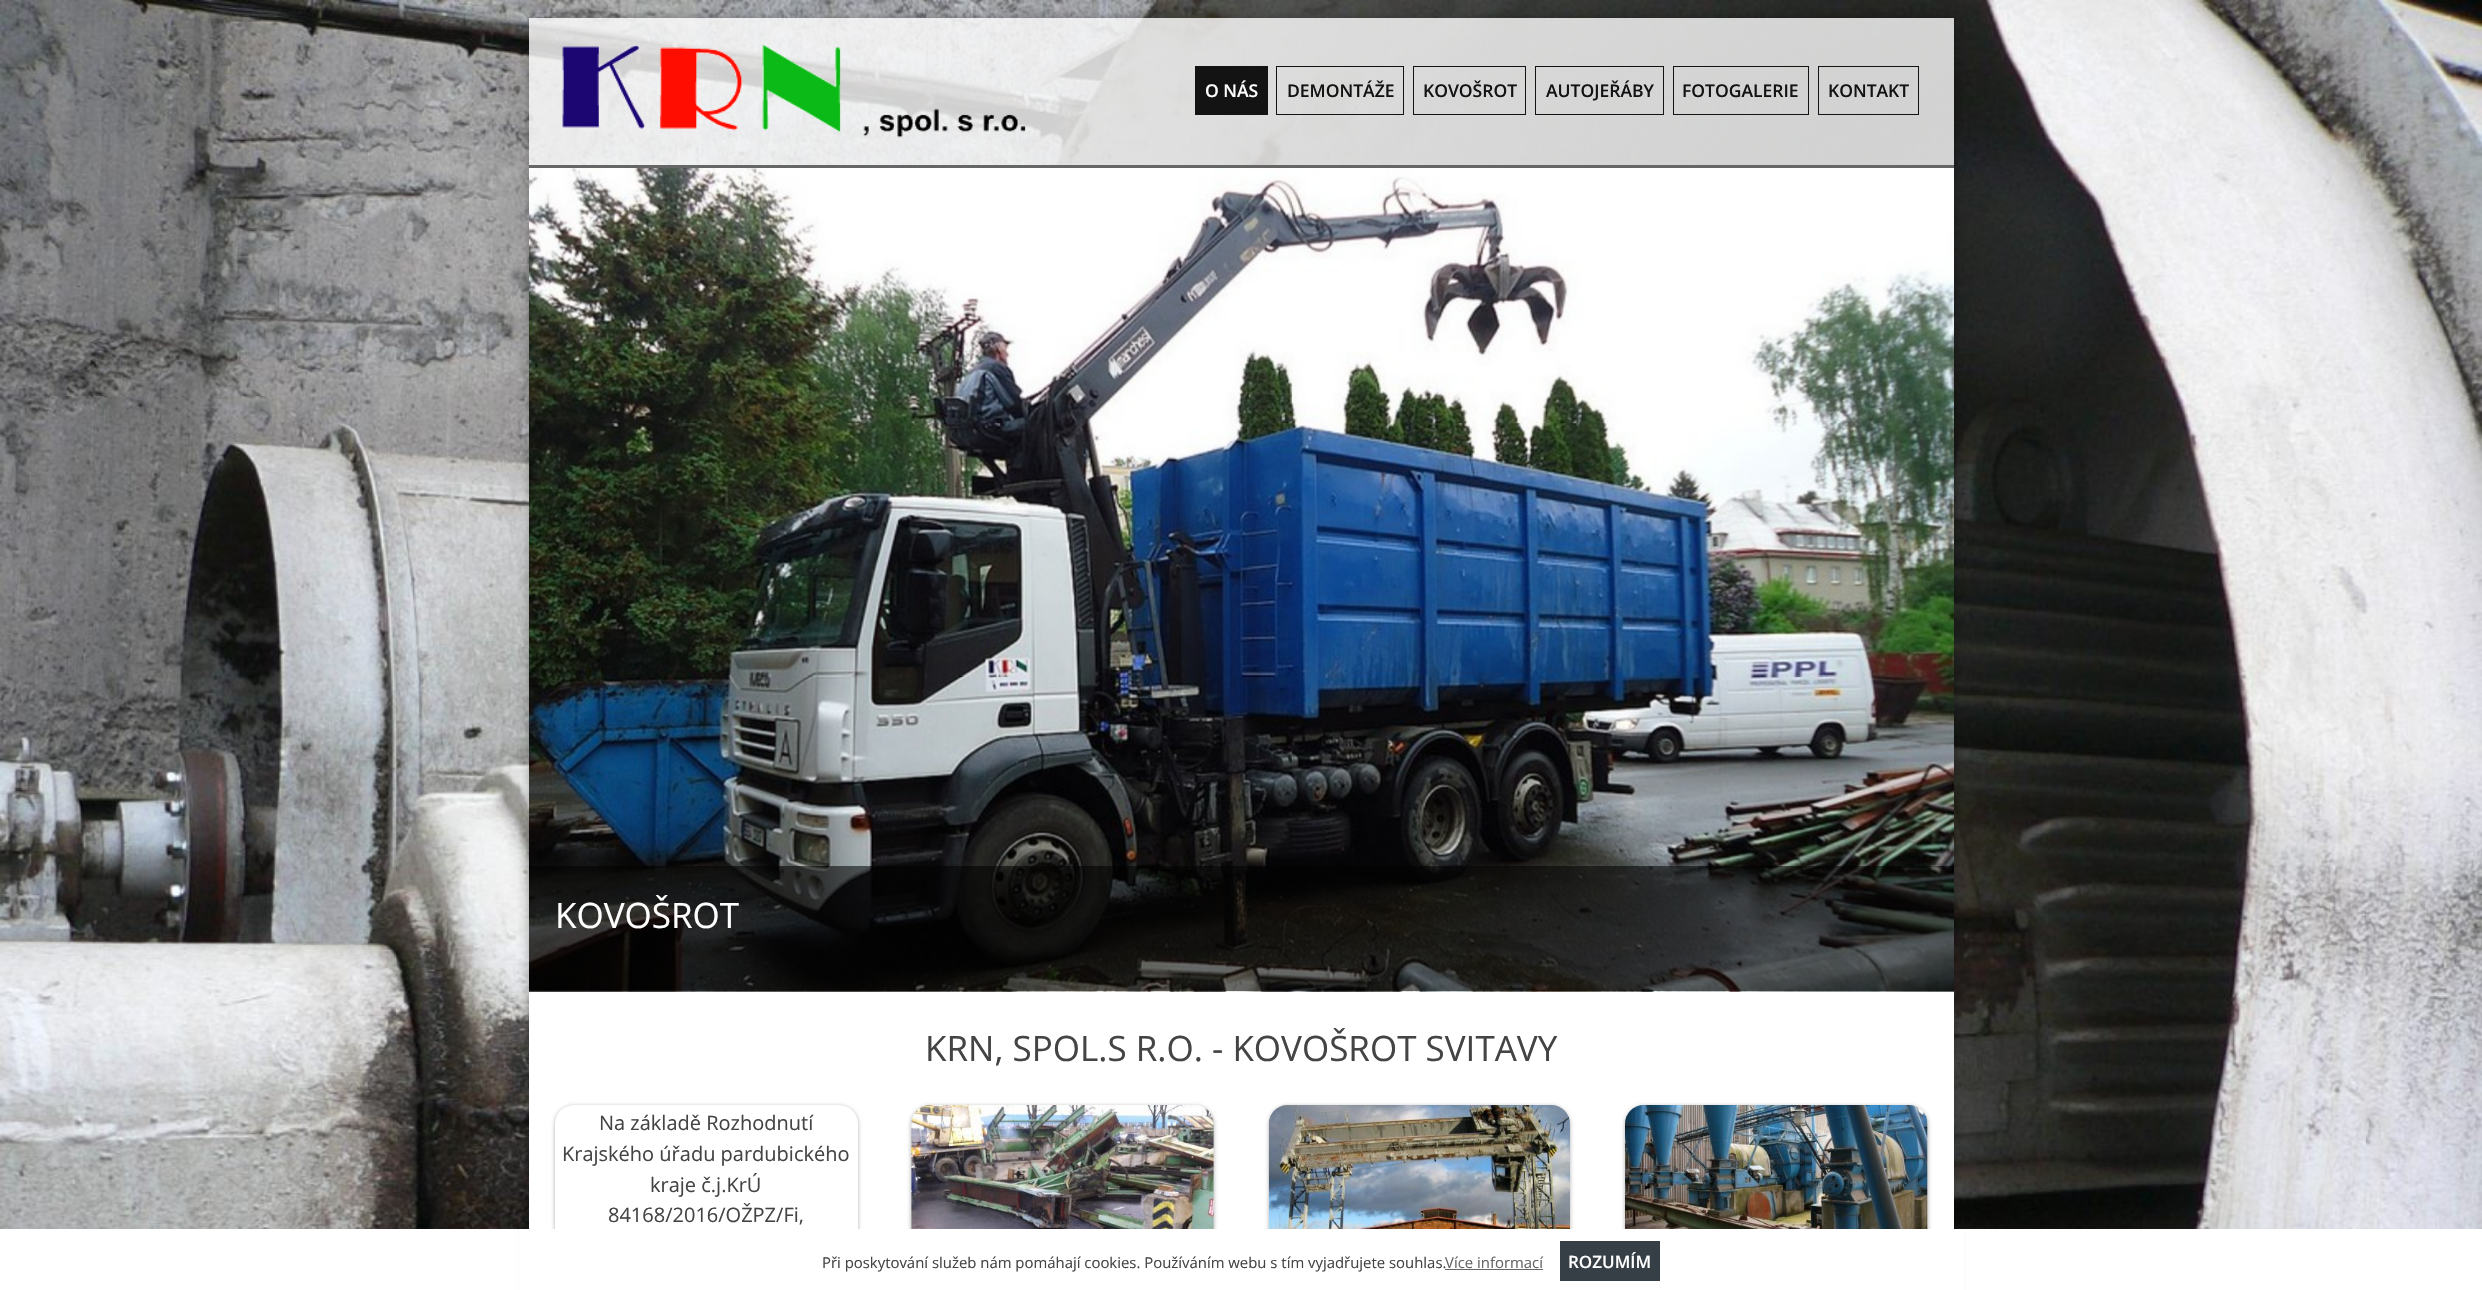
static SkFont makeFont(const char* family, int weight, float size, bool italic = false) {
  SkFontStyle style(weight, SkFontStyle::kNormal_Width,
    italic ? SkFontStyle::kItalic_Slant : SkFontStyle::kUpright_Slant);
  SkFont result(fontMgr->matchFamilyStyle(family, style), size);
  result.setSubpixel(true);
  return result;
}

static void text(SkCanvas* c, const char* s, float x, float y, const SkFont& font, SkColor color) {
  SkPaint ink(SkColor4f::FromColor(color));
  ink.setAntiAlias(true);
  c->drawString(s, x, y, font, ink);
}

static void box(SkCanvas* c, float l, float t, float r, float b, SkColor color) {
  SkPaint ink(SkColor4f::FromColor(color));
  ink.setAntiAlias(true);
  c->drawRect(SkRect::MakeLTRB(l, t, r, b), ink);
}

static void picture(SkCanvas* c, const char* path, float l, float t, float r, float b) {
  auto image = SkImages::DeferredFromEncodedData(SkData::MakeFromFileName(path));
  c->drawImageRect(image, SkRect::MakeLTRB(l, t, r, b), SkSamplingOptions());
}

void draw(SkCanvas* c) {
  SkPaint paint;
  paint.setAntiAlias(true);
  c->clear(0xffffffff);
  picture(c, "img_01.png", 0, 0, 2482, 1229);
  c->save();
  c->clipPath(SkPathBuilder(SkPathFillType::kEvenOdd).moveTo(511, 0).lineTo(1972, 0).lineTo(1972, 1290).lineTo(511, 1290).close().moveTo(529, 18).lineTo(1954, 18).lineTo(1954, 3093).lineTo(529, 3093).close().detach(), true);
  paint.setColor(0x4d000000);
  paint.setMaskFilter(SkMaskFilter::MakeBlur(kNormal_SkBlurStyle, 5.5f));
  c->drawRect(SkRect::MakeLTRB(529, 18, 1954, 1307), paint);
  paint.setMaskFilter(nullptr);
  c->restore();
  box(c, 529, 18, 1954, 165, 0xccffffff);
  box(c, 529, 165, 1954, 168, 0xff666666);
  picture(c, "img_02.png", 562, 44, 1026, 138);
  box(c, 1195, 66, 1268, 115, 0xff131313);
  SkFont face1 = makeFont("Open Sans", 600, 17.5f);
  text(c, "O NÁS", 1205, 97, face1, 0xffffffff);
  paint.setStyle(SkPaint::kStroke_Style);
  paint.setStrokeWidth(1);
  paint.setColor(0xff131313);
  c->drawRect(SkRect::MakeLTRB(1276.5f, 66.5f, 1403.5f, 114.5f), paint);
  text(c, "DEMONTÁŽE", 1287, 97, face1, 0xff131313);
  c->drawRect(SkRect::MakeLTRB(1413.5f, 66.5f, 1525.5f, 114.5f), paint);
  text(c, "KOVOŠROT", 1423, 97, face1, 0xff131313);
  c->drawRect(SkRect::MakeLTRB(1535.5f, 66.5f, 1663.5f, 114.5f), paint);
  text(c, "AUTOJEŘÁBY", 1546, 97, face1, 0xff131313);
  c->drawRect(SkRect::MakeLTRB(1673.5f, 66.5f, 1808.5f, 114.5f), paint);
  text(c, "FOTOGALERIE", 1682, 97, face1, 0xff131313);
  c->drawRect(SkRect::MakeLTRB(1818.5f, 66.5f, 1918.5f, 114.5f), paint);
  text(c, "KONTAKT", 1828, 97, face1, 0xff131313);
  box(c, 529, 991, 1954, 1229, 0xffffffff);
  picture(c, "img_03.png", 529, 168, 1954, 992);
  box(c, 529, 866, 1954, 991, 0x8c000000);
  SkFont face2 = makeFont("Open Sans", 400, 35);
  text(c, "KOVOŠROT", 555, 928, face2, 0xffffffff);
  text(c, "KRN, SPOL.S R.O. - KOVOŠROT SVITAVY", 925, 1061, face2, 0xff444444);
  c->save();
  c->clipPath(SkPathBuilder(SkPathFillType::kEvenOdd).moveTo(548, 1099).lineTo(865, 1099).lineTo(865, 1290).lineTo(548, 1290).close().moveTo(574, 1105).lineTo(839, 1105).cubicTo(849.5f, 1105, 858, 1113.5f, 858, 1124).lineTo(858, 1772).cubicTo(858, 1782.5f, 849.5f, 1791, 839, 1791).lineTo(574, 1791).cubicTo(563.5f, 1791, 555, 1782.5f, 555, 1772).lineTo(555, 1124).cubicTo(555, 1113.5f, 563.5f, 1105, 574, 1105).close().detach(), true);
  paint.setStyle(SkPaint::kFill_Style);
  paint.setColor(0x4d000000);
  paint.setMaskFilter(SkMaskFilter::MakeBlur(kNormal_SkBlurStyle, 2));
  c->drawRoundRect(SkRect::MakeLTRB(555, 1106, 858, 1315), 19, 19, paint);
  paint.setMaskFilter(nullptr);
  c->restore();
  SkFont face3 = makeFont("Open Sans", 400, 20);
  text(c, "Na základě Rozhodnutí", 599, 1130, face3, 0xff444444);
  text(c, "Krajského úřadu pardubického", 562, 1161, face3, 0xff444444);
  text(c, "kraje č.j.KrÚ", 650, 1192, face3, 0xff444444);
  text(c, "84168/2016/OŽPZ/Fi,", 608, 1222, face3, 0xff444444);
  paint.setMaskFilter(SkMaskFilter::MakeBlur(kNormal_SkBlurStyle, 2));
  c->drawRoundRect(SkRect::MakeLTRB(911, 1106, 1214, 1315), 19, 19, paint);
  paint.setMaskFilter(nullptr);
  picture(c, "img_04.png", 911, 1105, 1214, 1229);
  paint.setMaskFilter(SkMaskFilter::MakeBlur(kNormal_SkBlurStyle, 2));
  c->drawRoundRect(SkRect::MakeLTRB(1269, 1106, 1570, 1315), 19, 19, paint);
  paint.setMaskFilter(nullptr);
  picture(c, "img_05.png", 1268, 1105, 1570, 1229);
  paint.setMaskFilter(SkMaskFilter::MakeBlur(kNormal_SkBlurStyle, 2));
  c->drawRoundRect(SkRect::MakeLTRB(1625, 1106, 1928, 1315), 19, 19, paint);
  paint.setMaskFilter(nullptr);
  picture(c, "img_06.png", 1625, 1105, 1928, 1229);
  box(c, 519, 1229, 1964, 1290, 0xffffffff);
  SkFont face4 = makeFont("Open Sans", 400, 14.9f);
  text(c, "Při poskytování služeb nám pomáhají cookies. Používáním webu s tím vyjadřujete souhlas.", 822, 1268, face4, 0xff444444);
  text(c, "Více informací", 1445, 1268, face4, 0xff666666);
  box(c, 1445, 1269, 1543, 1270, 0xff666666);
  box(c, 1560, 1241, 1660, 1281, 0xff363f45);
  SkFont face5 = makeFont("Open Sans", 600, 17);
  text(c, "ROZUMÍM", 1568, 1268, face5, 0xffffffff);
}
